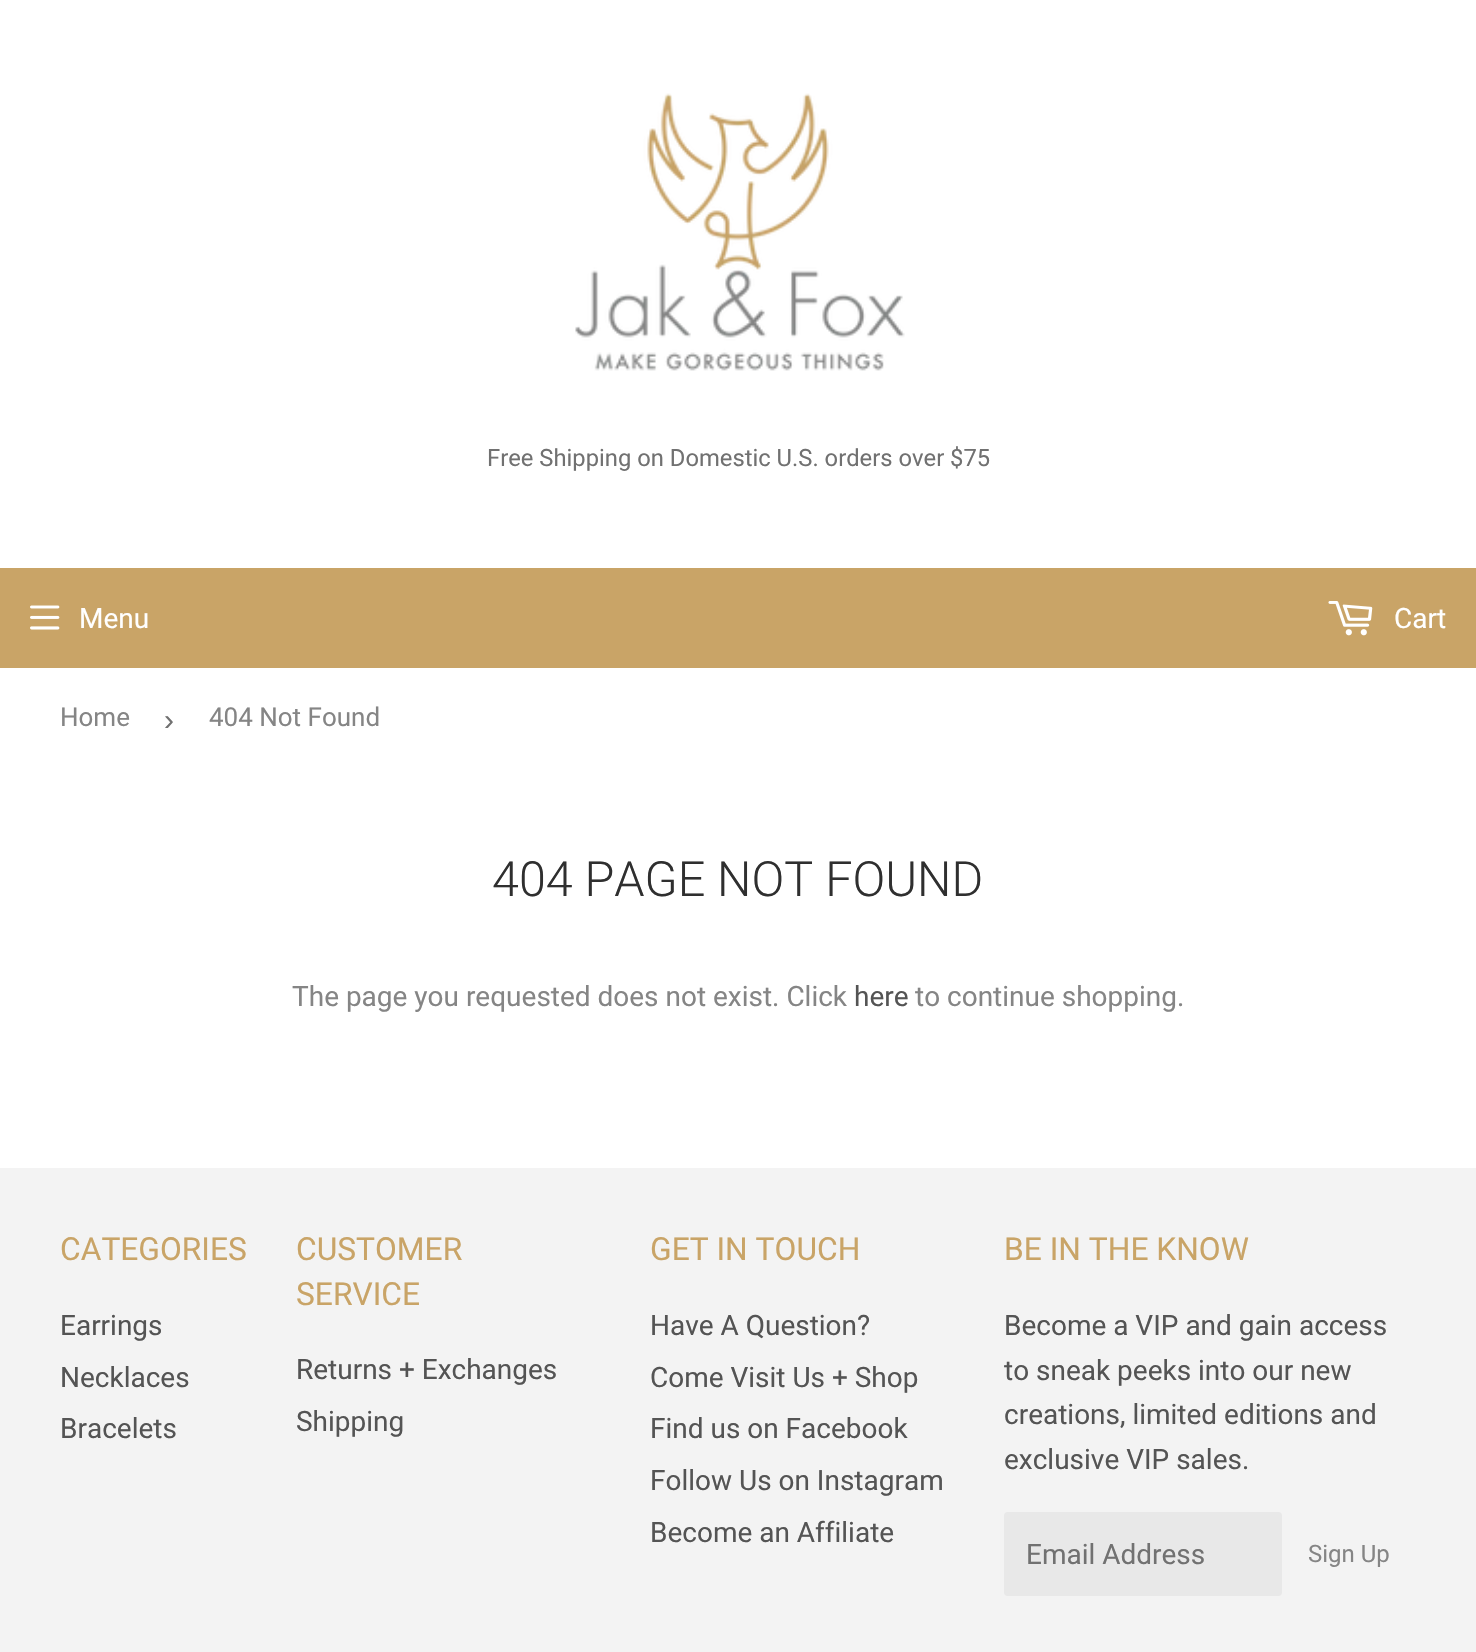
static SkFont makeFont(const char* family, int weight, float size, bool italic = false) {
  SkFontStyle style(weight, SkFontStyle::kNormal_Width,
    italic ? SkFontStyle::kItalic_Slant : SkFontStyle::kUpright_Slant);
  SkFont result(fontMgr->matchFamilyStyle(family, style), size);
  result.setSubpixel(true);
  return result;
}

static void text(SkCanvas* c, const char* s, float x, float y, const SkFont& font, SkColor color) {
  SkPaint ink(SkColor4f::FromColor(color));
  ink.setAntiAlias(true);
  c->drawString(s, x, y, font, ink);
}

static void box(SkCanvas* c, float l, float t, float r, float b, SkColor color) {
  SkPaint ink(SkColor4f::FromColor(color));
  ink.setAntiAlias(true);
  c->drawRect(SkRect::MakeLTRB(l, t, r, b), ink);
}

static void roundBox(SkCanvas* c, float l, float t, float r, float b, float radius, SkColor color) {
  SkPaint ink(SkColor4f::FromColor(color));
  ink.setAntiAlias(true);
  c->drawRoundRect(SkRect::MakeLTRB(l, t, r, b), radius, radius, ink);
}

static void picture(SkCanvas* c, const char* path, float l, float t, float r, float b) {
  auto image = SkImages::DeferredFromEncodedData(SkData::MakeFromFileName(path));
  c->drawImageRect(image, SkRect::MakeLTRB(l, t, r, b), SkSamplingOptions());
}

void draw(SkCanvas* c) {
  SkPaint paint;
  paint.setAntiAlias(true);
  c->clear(0xffffffff);
  picture(c, "img_01.png", 575, 93, 905, 371);
  SkFont face1 = makeFont("Roboto", 400, 23.8f);
  text(c, "Free Shipping on Domestic U.S. orders over $75", 487, 466, face1, 0xff717171);
  box(c, 0, 568, 1476, 668, 0xffc9a467);
  picture(c, "img_02.png", 30, 605, 60, 630);
  SkFont face2 = makeFont("Roboto", 400, 28);
  text(c, "Menu", 79, 628, face2, 0xffffffff);
  picture(c, "img_03.png", 1328, 601, 1373, 636);
  text(c, "Cart", 1394, 628, face2, 0xffffffff);
  SkFont face3 = makeFont("Roboto", 400, 26);
  text(c, "Home", 60, 726, face3, 0xff858585);
  SkFont face4 = makeFont("Liberation Sans", 400, 30);
  text(c, "›", 164, 730, face4, 0xff717171);
  text(c, "404 Not Found", 209, 726, face3, 0xff858585);
  SkFont face5 = makeFont("Roboto", 300, 48.5f);
  text(c, "404 PAGE NOT FOUND", 492, 896, face5, 0xff2f2f2f);
  text(c, "The page you requested does not exist. Click", 292, 1006, face2, 0xff858585);
  text(c, "here", 854, 1006, face2, 0xff545454);
  text(c, "to continue shopping.", 915, 1006, face2, 0xff858585);
  box(c, 0, 1168, 1476, 1652, 0xfff3f3f3);
  SkFont face6 = makeFont("Roboto", 400, 31.75f);
  text(c, "CATEGORIES", 60, 1260, face6, 0xffc9a467);
  text(c, "Earrings", 60, 1335, face2, 0xff545454);
  text(c, "Necklaces", 60, 1387, face2, 0xff545454);
  text(c, "Bracelets", 60, 1438, face2, 0xff545454);
  text(c, "CUSTOMER", 296, 1260, face6, 0xffc9a467);
  text(c, "SERVICE", 296, 1305, face6, 0xffc9a467);
  text(c, "Returns + Exchanges", 296, 1379, face2, 0xff545454);
  text(c, "Shipping", 296, 1431, face2, 0xff545454);
  text(c, "GET IN TOUCH", 650, 1260, face6, 0xffc9a467);
  text(c, "Have A Question?", 650, 1335, face2, 0xff545454);
  text(c, "Come Visit Us + Shop", 650, 1387, face2, 0xff545454);
  text(c, "Find us on Facebook", 650, 1438, face2, 0xff545454);
  text(c, "Follow Us on Instagram", 650, 1490, face2, 0xff545454);
  text(c, "Become an Affiliate", 650, 1542, face2, 0xff545454);
  text(c, "BE IN THE KNOW", 1004, 1260, face6, 0xffc9a467);
  text(c, "Become a VIP and gain access", 1004, 1335, face2, 0xff545454);
  text(c, "to sneak peeks into our new", 1004, 1380, face2, 0xff545454);
  text(c, "creations, limited editions and", 1004, 1424, face2, 0xff545454);
  text(c, "exclusive VIP sales.", 1004, 1469, face2, 0xff545454);
  roundBox(c, 1004, 1512, 1282, 1596, 4, 0xffe8e8e8);
  text(c, "Email Address", 1026, 1564, face2, 0xff717171);
  SkFont face7 = makeFont("Roboto", 400, 24);
  text(c, "Sign Up", 1308, 1562, face7, 0xff858585);
}
